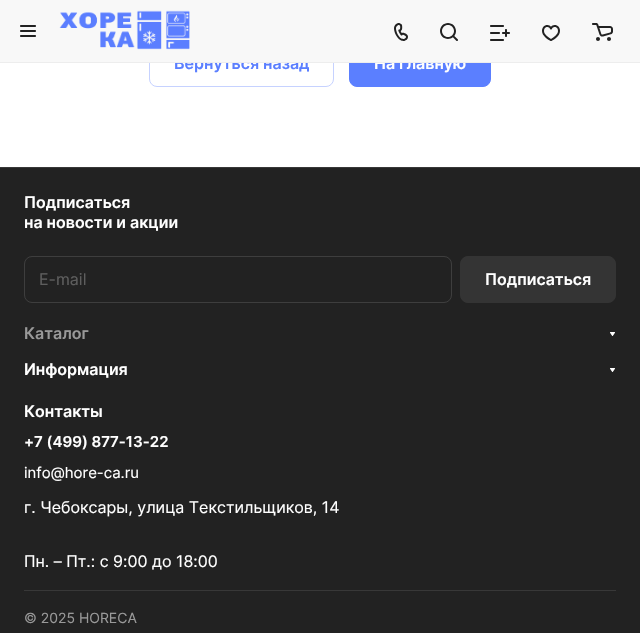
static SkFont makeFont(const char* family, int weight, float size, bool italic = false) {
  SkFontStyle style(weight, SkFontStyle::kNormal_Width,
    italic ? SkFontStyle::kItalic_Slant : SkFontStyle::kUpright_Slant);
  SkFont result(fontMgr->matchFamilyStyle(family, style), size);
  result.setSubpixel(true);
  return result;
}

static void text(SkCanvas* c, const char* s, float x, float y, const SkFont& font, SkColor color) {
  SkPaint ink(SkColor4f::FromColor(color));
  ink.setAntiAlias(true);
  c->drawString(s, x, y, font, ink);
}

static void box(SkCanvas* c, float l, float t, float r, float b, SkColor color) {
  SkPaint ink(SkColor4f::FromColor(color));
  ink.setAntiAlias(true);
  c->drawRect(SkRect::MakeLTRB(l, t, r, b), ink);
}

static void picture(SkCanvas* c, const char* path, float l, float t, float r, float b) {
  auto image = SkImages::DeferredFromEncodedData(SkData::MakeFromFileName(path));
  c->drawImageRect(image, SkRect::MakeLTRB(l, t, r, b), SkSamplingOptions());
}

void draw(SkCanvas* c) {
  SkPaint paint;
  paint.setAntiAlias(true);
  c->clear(0xffffffff);
  paint.setStyle(SkPaint::kStroke_Style);
  paint.setStrokeWidth(1);
  paint.setColor(0xffc6d2ff);
  c->drawRoundRect(SkRect::MakeLTRB(149.5f, 40.5f, 333.5f, 86.5f), 7.5f, 7.5f, paint);
  SkFont face1 = makeFont("Inter", 600, 16);
  text(c, "Вернуться назад", 174, 69, face1, 0xff5b7fff);
  paint.setStyle(SkPaint::kFill_Style);
  paint.setColor(0xff5b7fff);
  c->drawRoundRect(SkRect::MakeLTRB(349.5f, 40.5f, 490.5f, 86.5f), 7.5f, 7.5f, paint);
  paint.setStyle(SkPaint::kStroke_Style);
  c->drawRoundRect(SkRect::MakeLTRB(349.5f, 40.5f, 490.5f, 86.5f), 7.5f, 7.5f, paint);
  text(c, "На главную", 374, 69, face1, 0xffffffff);
  box(c, 0, 62, 640, 63, 0xffededed);
  box(c, 0, 0, 640, 62, 0xfff8f8f8);
  picture(c, "img_01.png", 20, 25, 36, 37);
  picture(c, "img_02.png", 59, 10, 190, 50);
  picture(c, "img_03.png", 394, 23, 408, 41);
  picture(c, "img_04.png", 440, 23, 458, 41);
  picture(c, "img_05.png", 490, 25, 510, 41);
  picture(c, "img_06.png", 542, 25, 560, 41);
  picture(c, "img_07.png", 592, 23, 613, 41);
  box(c, 0, 168, 640, 633, 0xff222222);
  box(c, 0, 167, 640, 168, 0xff383838);
  text(c, "Подписаться", 24, 208, face1, 0xffffffff);
  text(c, "на новости и акции", 24, 228, face1, 0xffffffff);
  paint.setColor(0xff3e3e3e);
  c->drawRoundRect(SkRect::MakeLTRB(24.5f, 256.5f, 451.5f, 302.5f), 7.5f, 7.5f, paint);
  SkFont face2 = makeFont("Inter", 400, 16);
  text(c, "E-mail", 39, 285, face2, 0xff5e5e5e);
  paint.setStyle(SkPaint::kFill_Style);
  paint.setColor(0xff343434);
  c->drawRoundRect(SkRect::MakeLTRB(460.5f, 256.5f, 615.5f, 302.5f), 7.5f, 7.5f, paint);
  paint.setStyle(SkPaint::kStroke_Style);
  c->drawRoundRect(SkRect::MakeLTRB(460.5f, 256.5f, 615.5f, 302.5f), 7.5f, 7.5f, paint);
  text(c, "Подписаться", 485, 285, face1, 0xffffffff);
  text(c, "Каталог", 24, 339, face1, 0xff999999);
  picture(c, "img_08.png", 610, 332, 615, 336);
  text(c, "Информация", 24, 375, face1, 0xffffffff);
  picture(c, "img_08.png", 610, 368, 615, 372);
  text(c, "Контакты", 24, 417, face1, 0xffffffff);
  SkFont face3 = makeFont("Inter", 600, 15);
  text(c, "+7 (499) 877-13-22", 24, 447, face3, 0xffffffff);
  SkFont face4 = makeFont("Inter", 400, 15);
  text(c, "info@hore-ca.ru", 24, 478, face4, 0xffffffff);
  text(c, "г. Чебоксары, улица Текстильщиков, 14", 24, 513, face2, 0xffffffff);
  text(c, "Пн. – Пт.: с 9:00 до 18:00", 24, 567, face2, 0xffffffff);
  box(c, 24, 590, 616, 591, 0xff383838);
  SkFont face5 = makeFont("Inter", 400, 14);
  text(c, "© 2025 HORECA", 24, 623, face5, 0xff999999);
}
